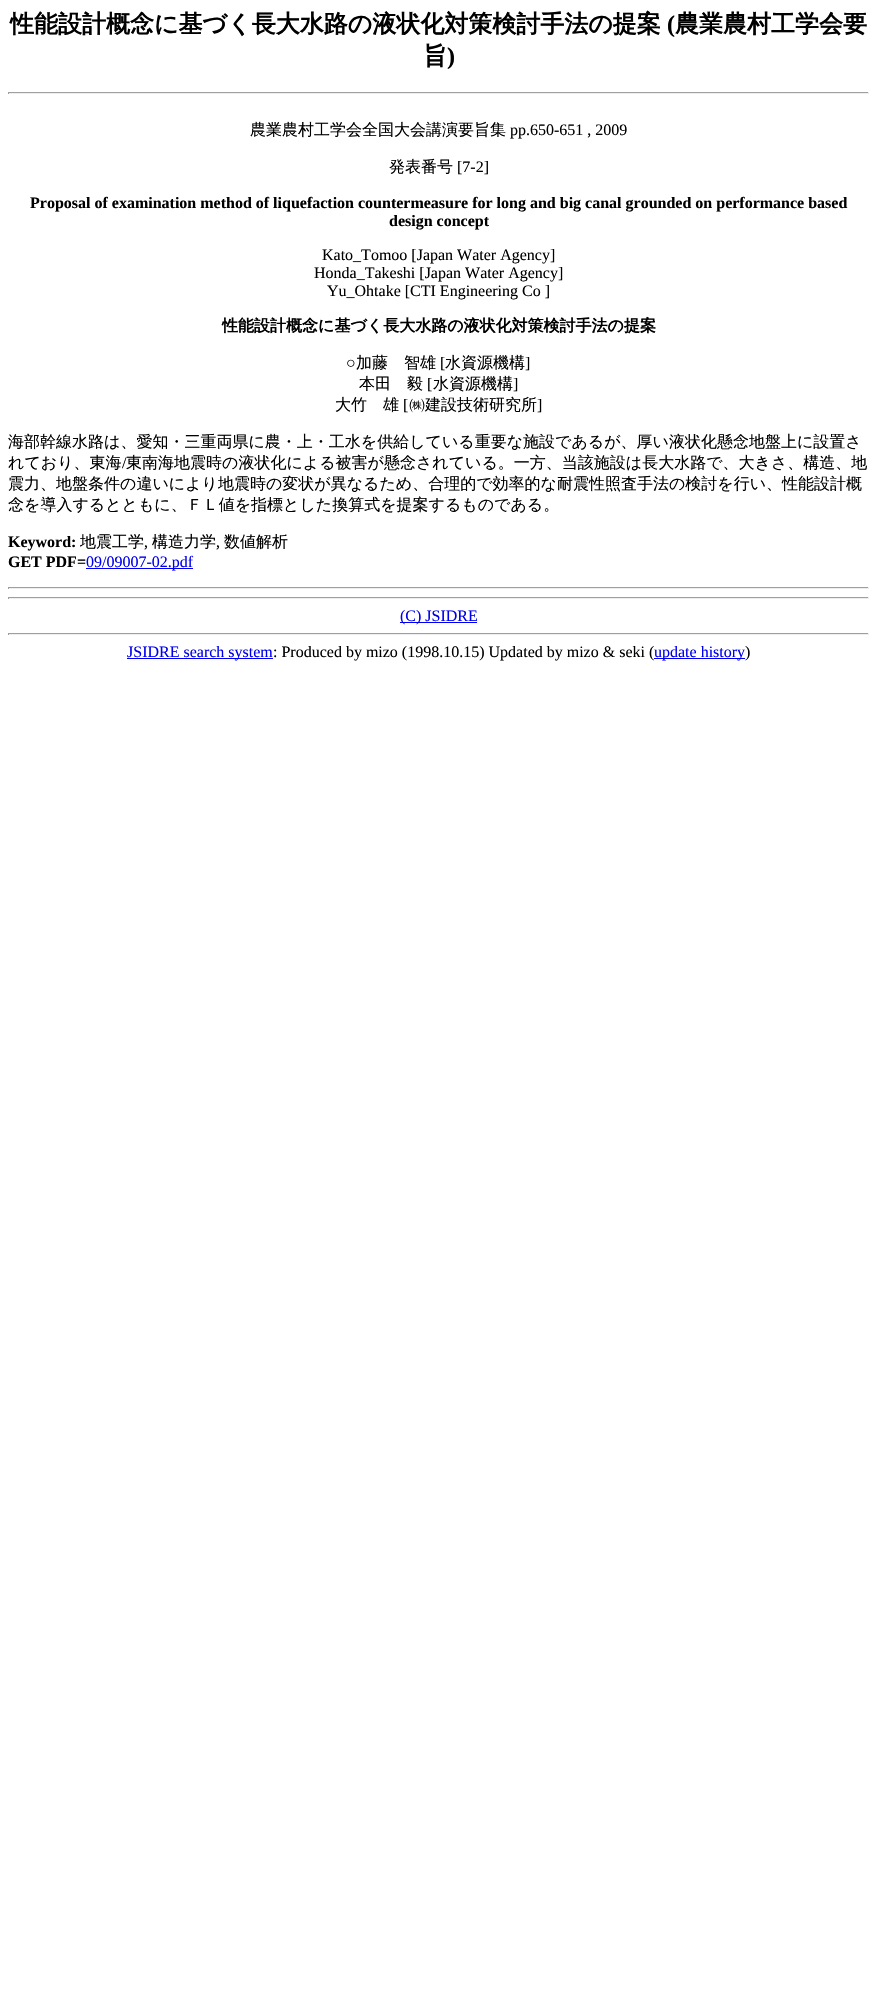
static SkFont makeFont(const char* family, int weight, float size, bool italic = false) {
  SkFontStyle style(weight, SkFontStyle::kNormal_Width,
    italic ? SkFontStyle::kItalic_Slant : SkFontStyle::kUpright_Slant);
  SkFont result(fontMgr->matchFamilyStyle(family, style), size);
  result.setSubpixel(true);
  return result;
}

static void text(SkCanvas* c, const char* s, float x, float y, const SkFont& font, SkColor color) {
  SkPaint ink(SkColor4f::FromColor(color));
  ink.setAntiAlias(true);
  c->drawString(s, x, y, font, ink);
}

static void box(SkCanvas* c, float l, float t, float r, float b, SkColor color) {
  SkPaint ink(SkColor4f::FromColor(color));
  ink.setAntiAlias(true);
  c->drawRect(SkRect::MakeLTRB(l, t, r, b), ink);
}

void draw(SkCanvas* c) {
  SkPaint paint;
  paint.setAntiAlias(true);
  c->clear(0xffffffff);
  SkFont face1 = makeFont("WenQuanYi Zen Hei", 700, 24);
  text(c, "性能設計概念に基づく長大水路の液状化対策検討手法の提案", 10, 32, face1, 0xff000000);
  SkFont face2 = makeFont("Liberation Serif", 700, 24);
  text(c, "(", 667, 32, face2, 0xff000000);
  text(c, "農業農村工学会要", 675, 32, face1, 0xff000000);
  text(c, "旨", 423, 64, face1, 0xff000000);
  text(c, ")", 447, 64, face2, 0xff000000);
  box(c, 8, 92, 869, 93, 0xff9f9f9f);
  box(c, 868, 92, 869, 94, 0xffeeeeee);
  box(c, 8, 93, 869, 94, 0xffeeeeee);
  box(c, 8, 92, 9, 94, 0xff9f9f9f);
  SkFont face3 = makeFont("WenQuanYi Zen Hei", 500, 16);
  text(c, "農業農村工学会全国大会講演要旨集", 250, 135, face3, 0xff000000);
  SkFont face4 = makeFont("Liberation Serif", 400, 16);
  text(c, "pp.650-651 , 2009", 510, 135, face4, 0xff000000);
  text(c, "発表番号", 389, 172, face3, 0xff000000);
  text(c, "[7-2]", 457, 172, face4, 0xff000000);
  SkFont face5 = makeFont("Liberation Serif", 700, 16);
  text(c, "Proposal of examination method of liquefaction countermeasure for long and big canal grounded on performance based", 30, 208, face5, 0xff000000);
  text(c, "design concept", 389, 226, face5, 0xff000000);
  text(c, "Kato_Tomoo [Japan Water Agency]", 322, 260, face4, 0xff000000);
  text(c, "Honda_Takeshi [Japan Water Agency]", 314, 278, face4, 0xff000000);
  text(c, "Yu_Ohtake [CTI Engineering Co ]", 327, 296, face4, 0xff000000);
  SkFont face6 = makeFont("WenQuanYi Zen Hei", 700, 16);
  text(c, "性能設計概念に基づく長大水路の液状化対策検討手法の提案", 222, 331, face6, 0xff000000);
  text(c, "○", 346, 368, face4, 0xff000000);
  text(c, "加藤　智雄", 356, 368, face3, 0xff000000);
  text(c, "[", 440, 368, face4, 0xff000000);
  text(c, "水資源機構", 445, 368, face3, 0xff000000);
  text(c, "]", 525, 368, face4, 0xff000000);
  text(c, "本田　毅", 359, 389, face3, 0xff000000);
  text(c, "[", 427, 389, face4, 0xff000000);
  text(c, "水資源機構", 433, 389, face3, 0xff000000);
  text(c, "]", 513, 389, face4, 0xff000000);
  text(c, "大竹　雄", 335, 410, face3, 0xff000000);
  text(c, "[", 403, 410, face4, 0xff000000);
  text(c, "㈱建設技術研究所", 409, 410, face3, 0xff000000);
  text(c, "]", 537, 410, face4, 0xff000000);
  text(c, "海部幹線水路は、愛知・三重両県に農・上・工水を供給している重要な施設であるが、厚い液状化懸念地盤上に設置さ", 8, 447, face3, 0xff000000);
  text(c, "れており、東海", 8, 468, face3, 0xff000000);
  text(c, "/", 122, 468, face4, 0xff000000);
  text(c, "東南海地震時の液状化による被害が懸念されている。一方、当該施設は長大水路で、大きさ、構造、地", 126, 468, face3, 0xff000000);
  text(c, "震力、地盤条件の違いにより地震時の変状が異なるため、合理的で効率的な耐震性照査手法の検討を行い、性能設計概", 8, 489, face3, 0xff000000);
  text(c, "念を導入するとともに、ＦＬ値を指標とした換算式を提案するものである。", 8, 510, face3, 0xff000000);
  text(c, "Keyword:", 8, 547, face5, 0xff000000);
  text(c, "地震工学", 80, 547, face3, 0xff000000);
  text(c, ",", 144, 547, face4, 0xff000000);
  text(c, "構造力学", 152, 547, face3, 0xff000000);
  text(c, ",", 216, 547, face4, 0xff000000);
  text(c, "数値解析", 224, 547, face3, 0xff000000);
  text(c, "GET PDF=", 8, 567, face5, 0xff000000);
  box(c, 86, 568, 193, 569, 0xff0000ee);
  text(c, "09/09007-02.pdf", 86, 567, face4, 0xff0000ee);
  box(c, 8, 587, 869, 588, 0xff9f9f9f);
  box(c, 868, 587, 869, 589, 0xffeeeeee);
  box(c, 8, 588, 869, 589, 0xffeeeeee);
  box(c, 8, 587, 9, 589, 0xff9f9f9f);
  box(c, 8, 597, 869, 598, 0xff9f9f9f);
  box(c, 868, 597, 869, 599, 0xffeeeeee);
  box(c, 8, 598, 869, 599, 0xffeeeeee);
  box(c, 8, 597, 9, 599, 0xff9f9f9f);
  box(c, 400, 622, 477, 623, 0xff0000ee);
  text(c, "(C) JSIDRE", 400, 621, face4, 0xff0000ee);
  box(c, 8, 633, 869, 634, 0xff9f9f9f);
  box(c, 868, 633, 869, 635, 0xffeeeeee);
  box(c, 8, 634, 869, 635, 0xffeeeeee);
  box(c, 8, 633, 9, 635, 0xff9f9f9f);
  box(c, 127, 658, 273, 659, 0xff0000ee);
  text(c, "JSIDRE search system", 127, 657, face4, 0xff0000ee);
  text(c, ": Produced by mizo (1998.10.15) Updated by mizo & seki (", 273, 657, face4, 0xff000000);
  box(c, 654, 658, 745, 659, 0xff0000ee);
  text(c, "update history", 654, 657, face4, 0xff0000ee);
  text(c, ")", 745, 657, face4, 0xff000000);
}
